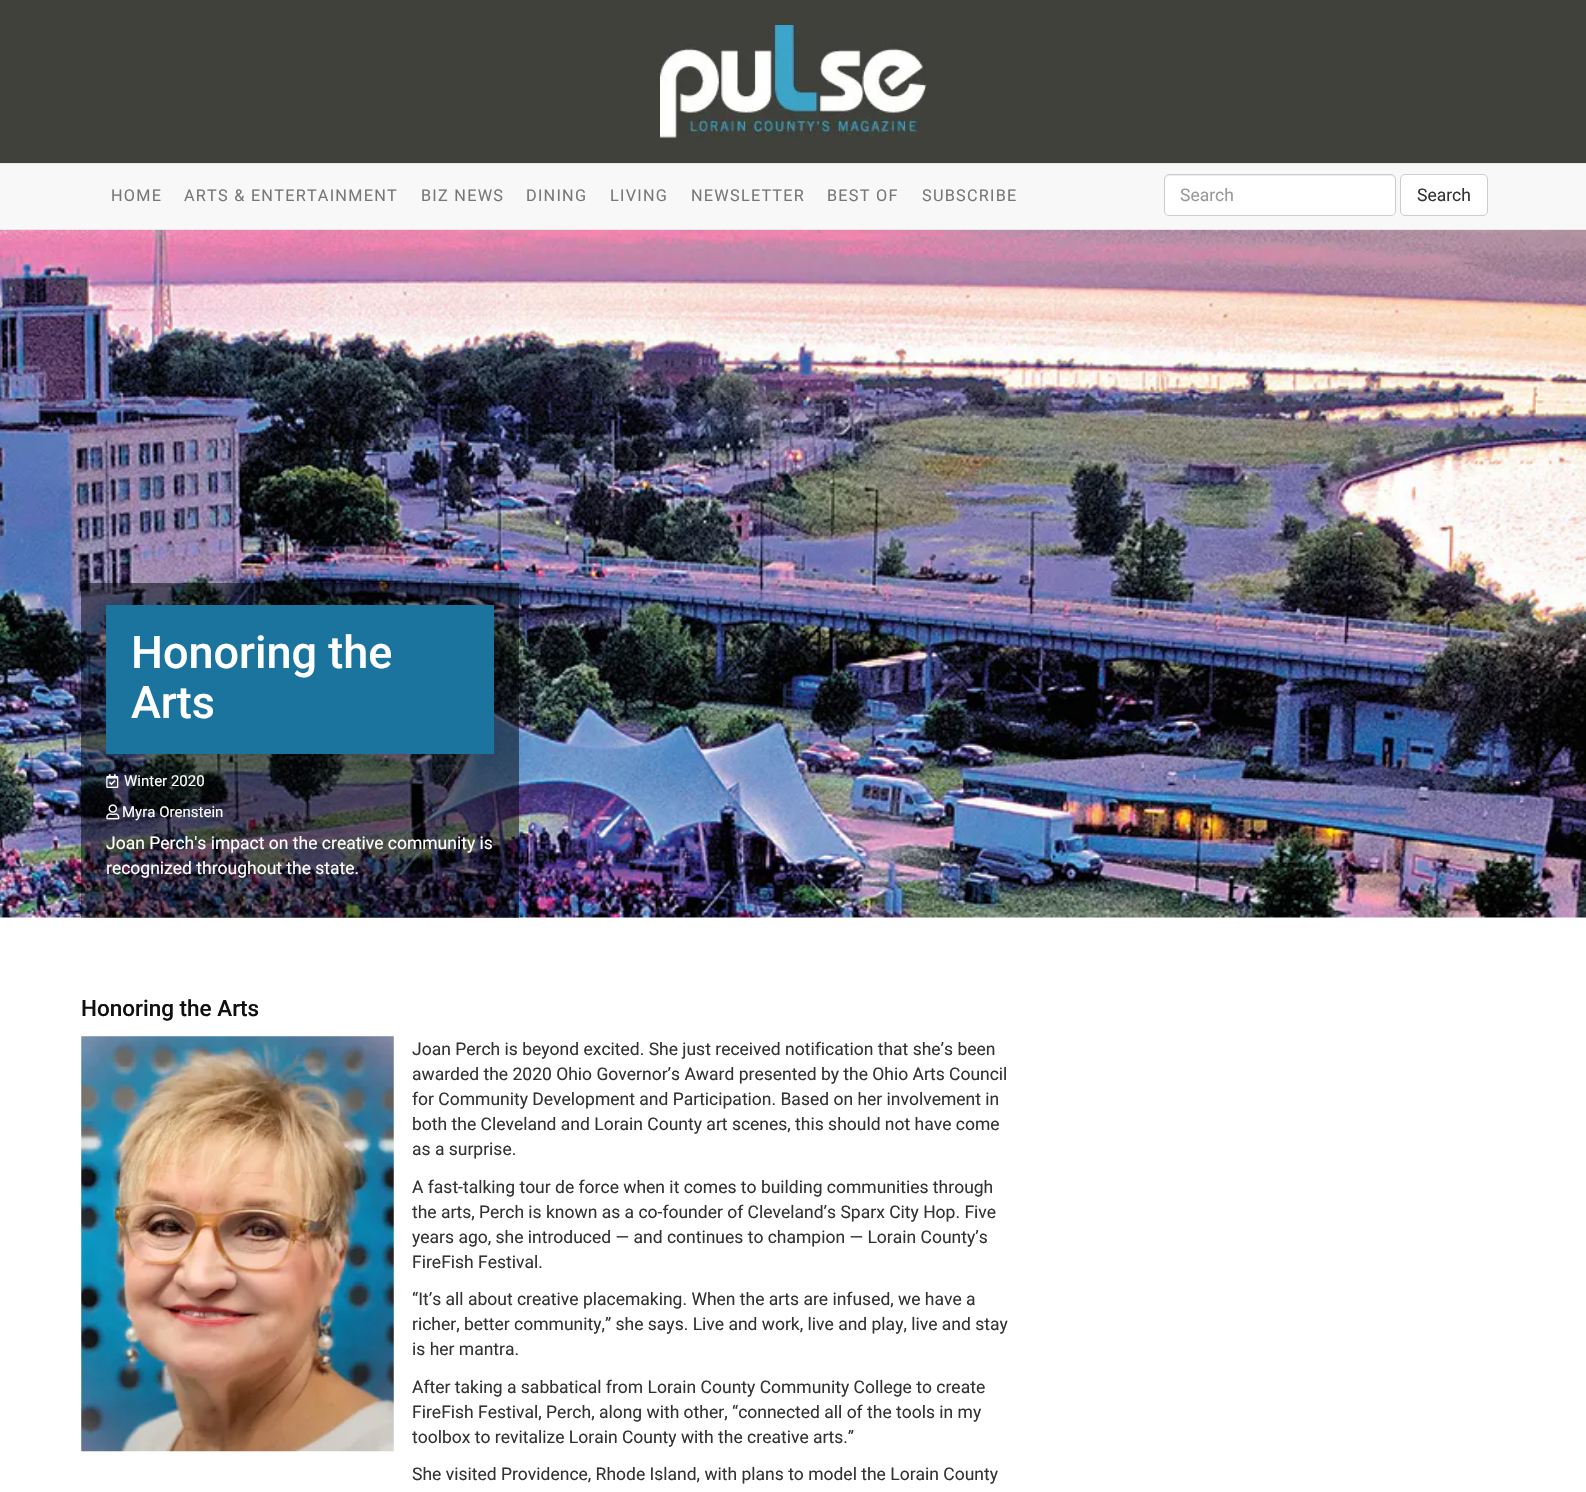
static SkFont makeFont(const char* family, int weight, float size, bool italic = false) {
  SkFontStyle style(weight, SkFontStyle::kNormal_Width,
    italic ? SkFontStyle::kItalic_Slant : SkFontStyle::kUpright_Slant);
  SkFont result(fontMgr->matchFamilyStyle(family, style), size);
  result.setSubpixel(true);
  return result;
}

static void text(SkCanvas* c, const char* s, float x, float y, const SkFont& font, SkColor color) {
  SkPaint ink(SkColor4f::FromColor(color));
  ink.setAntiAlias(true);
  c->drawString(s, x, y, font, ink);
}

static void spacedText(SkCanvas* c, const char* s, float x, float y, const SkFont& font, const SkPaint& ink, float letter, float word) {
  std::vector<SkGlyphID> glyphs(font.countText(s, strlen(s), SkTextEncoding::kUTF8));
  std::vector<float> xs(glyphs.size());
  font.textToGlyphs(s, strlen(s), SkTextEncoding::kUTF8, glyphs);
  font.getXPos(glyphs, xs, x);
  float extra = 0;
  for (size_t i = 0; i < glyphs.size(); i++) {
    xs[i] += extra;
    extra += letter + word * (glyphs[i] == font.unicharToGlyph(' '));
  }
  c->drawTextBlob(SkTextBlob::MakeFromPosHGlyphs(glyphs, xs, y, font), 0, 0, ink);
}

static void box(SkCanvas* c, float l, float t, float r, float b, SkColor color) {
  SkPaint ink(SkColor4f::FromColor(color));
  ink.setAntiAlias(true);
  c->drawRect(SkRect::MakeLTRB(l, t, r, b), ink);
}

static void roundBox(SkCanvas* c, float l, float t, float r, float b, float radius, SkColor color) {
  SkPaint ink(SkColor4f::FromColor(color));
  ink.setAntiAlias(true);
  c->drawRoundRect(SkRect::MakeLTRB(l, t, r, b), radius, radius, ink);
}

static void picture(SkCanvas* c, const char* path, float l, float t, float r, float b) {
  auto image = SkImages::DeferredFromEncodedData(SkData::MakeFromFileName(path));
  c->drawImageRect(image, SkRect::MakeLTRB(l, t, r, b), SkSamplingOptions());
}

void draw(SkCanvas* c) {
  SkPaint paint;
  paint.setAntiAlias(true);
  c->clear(0xffffffff);
  box(c, 0, 0, 1586, 163, 0xff40413a);
  picture(c, "img_01.png", 660, 25, 927, 138);
  box(c, 0, 164, 1586, 229, 0xfff8f8f8);
  box(c, 0, 163, 1586, 164, 0xffe7e7e7);
  box(c, 0, 229, 1586, 230, 0xffe7e7e7);
  SkFont face1 = makeFont("Roboto", 400, 16.25f);
  paint.setColor(0xff777777);
  spacedText(c, "HOME", 111, 201, face1, paint, 1.25f, 0);
  spacedText(c, "ARTS & ENTERTAINMENT", 184, 201, face1, paint, 1.25f, 0);
  spacedText(c, "BIZ NEWS", 421, 201, face1, paint, 1.25f, 0);
  spacedText(c, "DINING", 526, 201, face1, paint, 1.25f, 0);
  spacedText(c, "LIVING", 610, 201, face1, paint, 1.25f, 0);
  spacedText(c, "NEWSLETTER", 691, 201, face1, paint, 1.25f, 0);
  spacedText(c, "BEST OF", 827, 201, face1, paint, 1.25f, 0);
  spacedText(c, "SUBSCRIBE", 922, 201, face1, paint, 1.25f, 0);
  roundBox(c, 1164, 174, 1396, 216, 5, 0xffffffff);
  paint.setColor(0xffececec);
  c->drawPath(SkPathBuilder().moveTo(1169, 176).lineTo(1391, 176).cubicTo(1393, 176, 1395, 178, 1395, 180).cubicTo(1395, 177, 1394, 175, 1391, 175).lineTo(1169, 175).cubicTo(1166, 175, 1165, 177, 1165, 180).cubicTo(1165, 178, 1167, 176, 1169, 176).close().detach(), paint);
  paint.setStyle(SkPaint::kStroke_Style);
  paint.setStrokeWidth(1);
  paint.setColor(0xffcccccc);
  c->drawRoundRect(SkRect::MakeLTRB(1164.5f, 174.5f, 1395.5f, 215.5f), 4.5f, 4.5f, paint);
  SkFont face2 = makeFont("Roboto", 400, 17.5f);
  text(c, "Search", 1180, 201, face2, 0xff999999);
  paint.setStyle(SkPaint::kFill_Style);
  paint.setColor(0xffffffff);
  c->drawRoundRect(SkRect::MakeLTRB(1400.5f, 174.5f, 1487.5f, 215.5f), 4.5f, 4.5f, paint);
  paint.setStyle(SkPaint::kStroke_Style);
  paint.setColor(0xffcccccc);
  c->drawRoundRect(SkRect::MakeLTRB(1400.5f, 174.5f, 1487.5f, 215.5f), 4.5f, 4.5f, paint);
  text(c, "Search", 1417, 201, face2, 0xff333333);
  picture(c, "img_02.png", 0, 230, 1586, 918);
  box(c, 81, 583, 519, 918, 0x80000000);
  box(c, 106, 605, 494, 754, 0xff1b749d);
  SkFont face3 = makeFont("Roboto", 500, 45);
  text(c, "Honoring the", 131, 668, face3, 0xffffffff);
  text(c, "Arts", 131, 718, face3, 0xffffffff);
  picture(c, "img_03.png", 106, 774, 119, 788);
  SkFont face4 = makeFont("Roboto", 400, 15);
  text(c, "Winter 2020", 124, 786, face4, 0xffffffff);
  picture(c, "img_04.png", 106, 804, 120, 820);
  text(c, "Myra Orenstein", 122, 817, face4, 0xffffffff);
  text(c, "Joan Perch's impact on the creative community is", 106, 849, face2, 0xffffffff);
  text(c, "recognized throughout the state.", 106, 874, face2, 0xffffffff);
  SkFont face5 = makeFont("Roboto", 500, 22.5f);
  text(c, "Honoring the Arts", 81, 1016, face5, 0xff101010);
  picture(c, "img_05.png", 81, 1036, 394, 1452);
  text(c, "Joan Perch is beyond excited. She just received notification that she’s been", 412, 1055, face2, 0xff333333);
  text(c, "awarded the 2020 Ohio Governor’s Award presented by the Ohio Arts Council", 412, 1080, face2, 0xff333333);
  text(c, "for Community Development and Participation. Based on her involvement in", 412, 1105, face2, 0xff333333);
  text(c, "both the Cleveland and Lorain County art scenes, this should not have come", 412, 1130, face2, 0xff333333);
  text(c, "as a surprise.", 412, 1155, face2, 0xff333333);
  text(c, "A fast-talking tour de force when it comes to building communities through", 412, 1193, face2, 0xff333333);
  text(c, "the arts, Perch is known as a co-founder of Cleveland’s Sparx City Hop. Five", 412, 1218, face2, 0xff333333);
  text(c, "years ago, she introduced — and continues to champion — Lorain County’s", 412, 1243, face2, 0xff333333);
  text(c, "FireFish Festival.", 412, 1268, face2, 0xff333333);
  text(c, "“It’s all about creative placemaking. When the arts are infused, we have a", 412, 1305, face2, 0xff333333);
  text(c, "richer, better community,” she says. Live and work, live and play, live and stay", 412, 1330, face2, 0xff333333);
  text(c, "is her mantra.", 412, 1355, face2, 0xff333333);
  text(c, "After taking a sabbatical from Lorain County Community College to create", 412, 1393, face2, 0xff333333);
  text(c, "FireFish Festival, Perch, along with other, “connected all of the tools in my", 412, 1418, face2, 0xff333333);
  text(c, "toolbox to revitalize Lorain County with the creative arts.”", 412, 1443, face2, 0xff333333);
  text(c, "She visited Providence, Rhode Island, with plans to model the Lorain County", 412, 1480, face2, 0xff333333);
}
